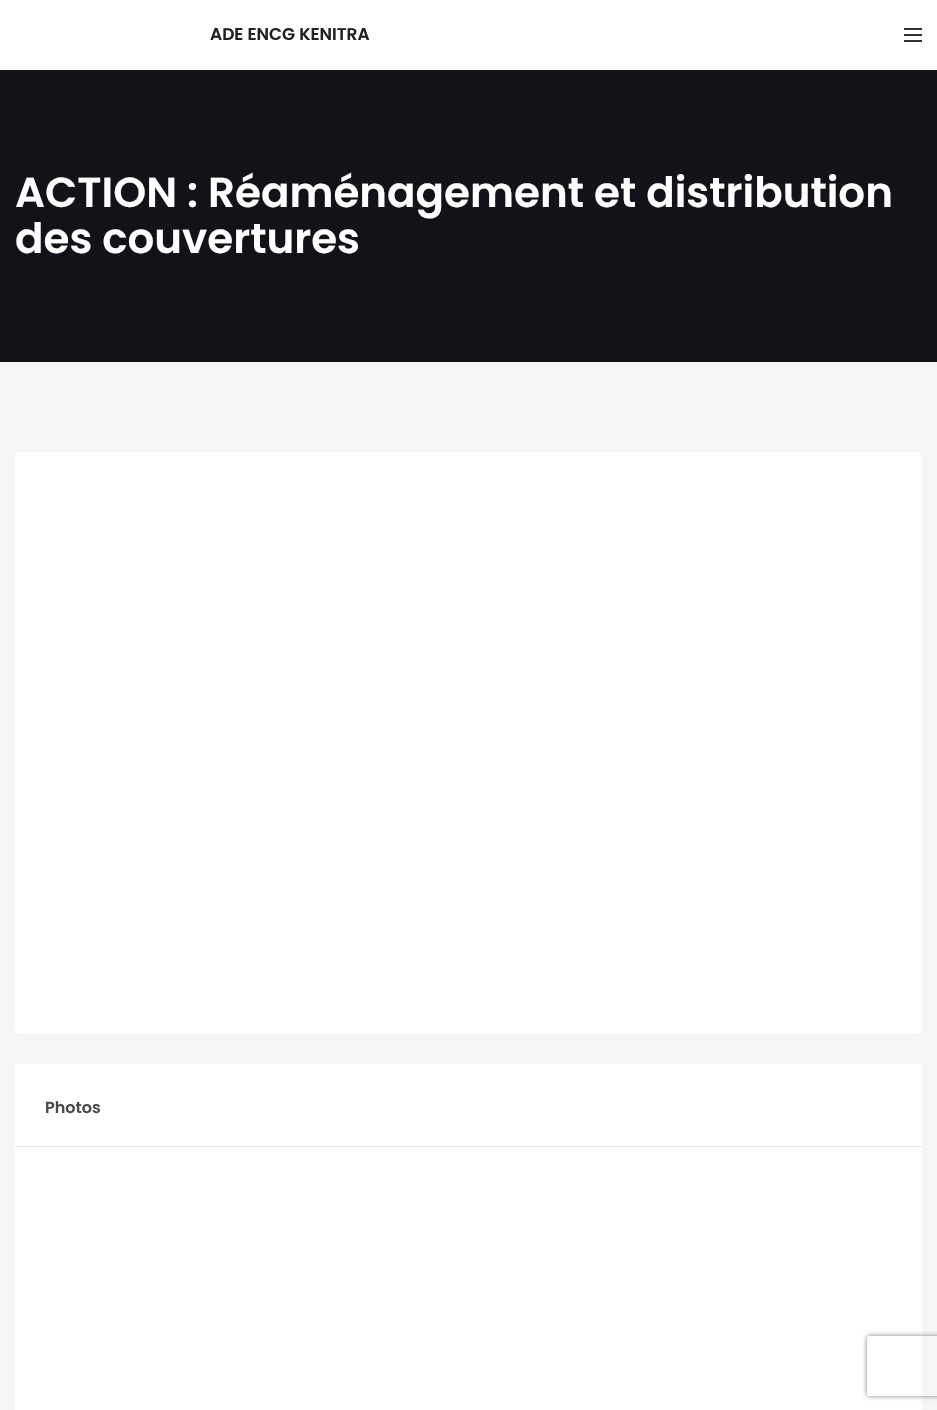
static SkFont makeFont(const char* family, int weight, float size, bool italic = false) {
  SkFontStyle style(weight, SkFontStyle::kNormal_Width,
    italic ? SkFontStyle::kItalic_Slant : SkFontStyle::kUpright_Slant);
  SkFont result(fontMgr->matchFamilyStyle(family, style), size);
  result.setSubpixel(true);
  return result;
}

static void text(SkCanvas* c, const char* s, float x, float y, const SkFont& font, SkColor color) {
  SkPaint ink(SkColor4f::FromColor(color));
  ink.setAntiAlias(true);
  c->drawString(s, x, y, font, ink);
}

static void box(SkCanvas* c, float l, float t, float r, float b, SkColor color) {
  SkPaint ink(SkColor4f::FromColor(color));
  ink.setAntiAlias(true);
  c->drawRect(SkRect::MakeLTRB(l, t, r, b), ink);
}

static void roundBox(SkCanvas* c, float l, float t, float r, float b, float radius, SkColor color) {
  SkPaint ink(SkColor4f::FromColor(color));
  ink.setAntiAlias(true);
  c->drawRoundRect(SkRect::MakeLTRB(l, t, r, b), radius, radius, ink);
}

void draw(SkCanvas* c) {
  SkPaint paint;
  paint.setAntiAlias(true);
  c->clear(0xfff6f6f6);
  box(c, 0, 0, 937, 70, 0xffffffff);
  SkFont face1 = makeFont("Poppins", 600, 17);
  text(c, "ADE ENCG KENITRA", 210, 40, face1, 0xff222222);
  box(c, 904, 28, 922, 30, 0xff333333);
  box(c, 904, 34, 922, 36, 0xff333333);
  box(c, 904, 40, 922, 42, 0xff333333);
  box(c, 0, 70, 937, 362, 0xff121219);
  SkFont face2 = makeFont("Poppins", 600, 42);
  text(c, "ACTION : Réaménagement et distribution", 15, 207, face2, 0xffffffff);
  text(c, "des couvertures", 15, 253, face2, 0xffffffff);
  roundBox(c, 15, 452, 922, 1034, 5, 0xffffffff);
  box(c, 15, 1147, 922, 1410, 0xffffffff);
  box(c, 15, 1064, 922, 1146, 0xffffffff);
  box(c, 15, 1146, 922, 1147, 0xffeaeaea);
  SkFont face3 = makeFont("Poppins", 600, 16);
  text(c, "Photos", 45, 1113, face3, 0xff4a4a4a);
  c->save();
  c->clipPath(SkPathBuilder(SkPathFillType::kEvenOdd).moveTo(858, 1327).lineTo(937, 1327).lineTo(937, 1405).lineTo(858, 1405).close().moveTo(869, 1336).lineTo(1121, 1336).cubicTo(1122, 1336, 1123, 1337, 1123, 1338).lineTo(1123, 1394).cubicTo(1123, 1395, 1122, 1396, 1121, 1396).lineTo(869, 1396).cubicTo(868, 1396, 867, 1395, 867, 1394).lineTo(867, 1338).cubicTo(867, 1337, 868, 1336, 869, 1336).close().detach(), true);
  paint.setColor(0xff808080);
  paint.setMaskFilter(SkMaskFilter::MakeBlur(kNormal_SkBlurStyle, 2.5f));
  c->drawRoundRect(SkRect::MakeLTRB(867, 1336, 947, 1396), 2, 2, paint);
  paint.setMaskFilter(nullptr);
  c->restore();
}
